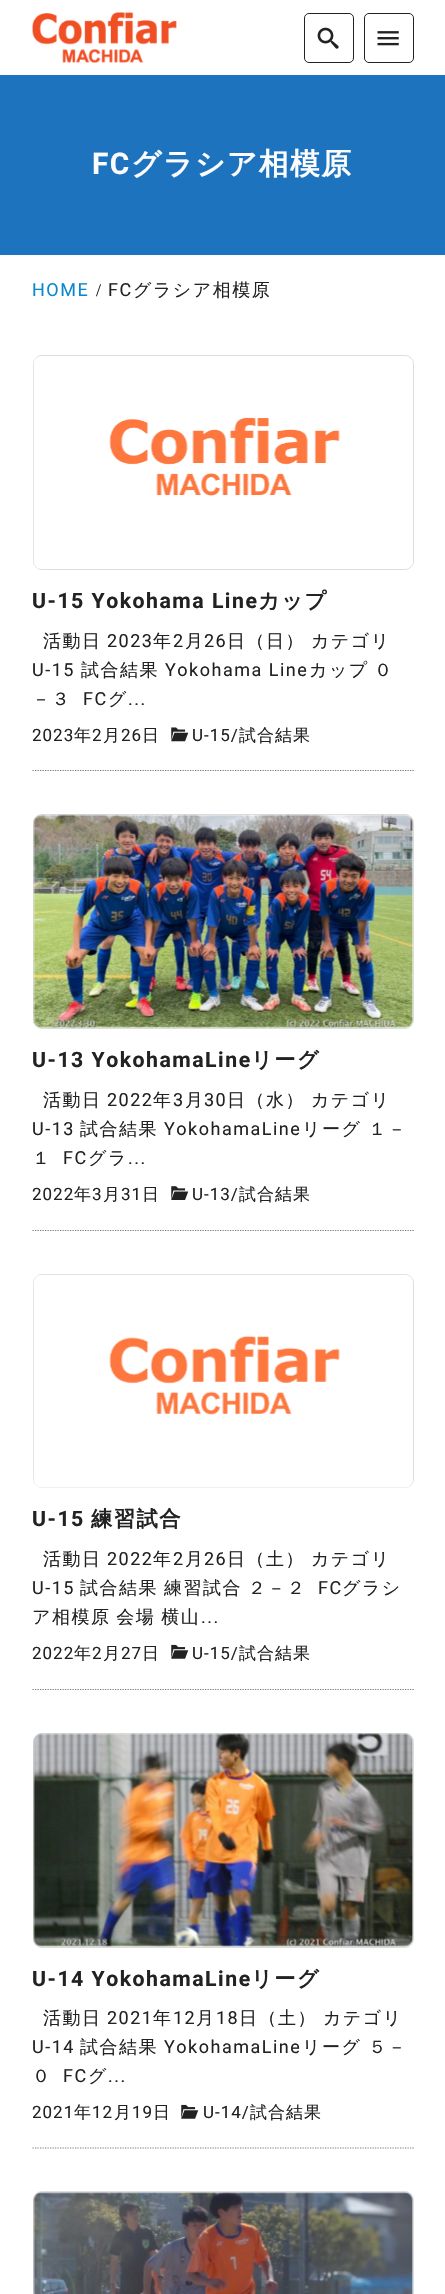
static SkFont makeFont(const char* family, int weight, float size, bool italic = false) {
  SkFontStyle style(weight, SkFontStyle::kNormal_Width,
    italic ? SkFontStyle::kItalic_Slant : SkFontStyle::kUpright_Slant);
  SkFont result(fontMgr->matchFamilyStyle(family, style), size);
  result.setSubpixel(true);
  return result;
}

static void spacedText(SkCanvas* c, const char* s, float x, float y, const SkFont& font, const SkPaint& ink, float letter, float word) {
  std::vector<SkGlyphID> glyphs(font.countText(s, strlen(s), SkTextEncoding::kUTF8));
  std::vector<float> xs(glyphs.size());
  font.textToGlyphs(s, strlen(s), SkTextEncoding::kUTF8, glyphs);
  font.getXPos(glyphs, xs, x);
  float extra = 0;
  for (size_t i = 0; i < glyphs.size(); i++) {
    xs[i] += extra;
    extra += letter + word * (glyphs[i] == font.unicharToGlyph(' '));
  }
  c->drawTextBlob(SkTextBlob::MakeFromPosHGlyphs(glyphs, xs, y, font), 0, 0, ink);
}

static void box(SkCanvas* c, float l, float t, float r, float b, SkColor color) {
  SkPaint ink(SkColor4f::FromColor(color));
  ink.setAntiAlias(true);
  c->drawRect(SkRect::MakeLTRB(l, t, r, b), ink);
}

static void picture(SkCanvas* c, const char* path, float l, float t, float r, float b) {
  auto image = SkImages::DeferredFromEncodedData(SkData::MakeFromFileName(path));
  c->drawImageRect(image, SkRect::MakeLTRB(l, t, r, b), SkSamplingOptions());
}

void draw(SkCanvas* c) {
  SkPaint paint;
  paint.setAntiAlias(true);
  c->clear(0xffffffff);
  picture(c, "img_01.png", 32, 12, 177, 63);
  paint.setStyle(SkPaint::kStroke_Style);
  paint.setStrokeWidth(1);
  paint.setColor(0xff222222);
  c->drawRoundRect(SkRect::MakeLTRB(304.5f, 13.5f, 353.5f, 62.5f), 4.5f, 4.5f, paint);
  picture(c, "img_02.png", 317, 27, 339, 49);
  c->drawRoundRect(SkRect::MakeLTRB(364.5f, 13.5f, 413.5f, 62.5f), 4.5f, 4.5f, paint);
  picture(c, "img_03.png", 377, 31, 399, 46);
  box(c, 0, 75, 445, 255, 0xff1e73be);
  SkFont face1 = makeFont("Roboto", 700, 29.75f);
  paint.setStyle(SkPaint::kFill_Style);
  paint.setColor(0xfffcfcfc);
  spacedText(c, "FC", 92, 174, face1, paint, 1.5f, 0);
  SkFont face2 = makeFont("WenQuanYi Zen Hei", 700, 29.75f);
  spacedText(c, "グラシア相模原", 131, 174, face2, paint, 1.5f, 0);
  SkFont face3 = makeFont("Roboto", 400, 18);
  paint.setColor(0xff0a88cc);
  spacedText(c, "HOME", 32, 296, face3, paint, 1.5f, 0);
  SkFont face4 = makeFont("Liberation Serif", 400, 18);
  paint.setColor(0xff222222);
  spacedText(c, "/", 96, 296, face4, paint, 1.5f, 0);
  spacedText(c, "FC", 108, 296, face3, paint, 1.5f, 0);
  SkFont face5 = makeFont("WenQuanYi Zen Hei", 500, 18);
  spacedText(c, "グラシア相模原", 133, 296, face5, paint, 1.5f, 0);
  paint.setStyle(SkPaint::kStroke_Style);
  paint.setStrokeWidth(1.2f);
  paint.setColor(0xff777777);
  paint.setPathEffect(SkDashPathEffect::Make({{1.25f, 1.25f}}, 0));
  c->drawPath(SkPathBuilder().moveTo(32.5f, 770.5f).lineTo(414, 770.5f).detach(), paint);
  paint.setPathEffect(nullptr);
  paint.setStrokeWidth(1);
  paint.setColor(0xffdddddd);
  c->drawRoundRect(SkRect::MakeLTRB(33.5f, 355.5f, 413.5f, 569.5f), 8.5f, 8.5f, paint);
  picture(c, "img_04.png", 33, 356, 413, 569);
  SkFont face6 = makeFont("Roboto", 700, 21.25f);
  paint.setStyle(SkPaint::kFill_Style);
  paint.setColor(0xff222222);
  spacedText(c, "U-15 Yokohama Line", 32, 608, face6, paint, 1.5f, 0);
  SkFont face7 = makeFont("WenQuanYi Zen Hei", 700, 21.25f);
  spacedText(c, "カップ", 258, 608, face7, paint, 1.5f, 0);
  spacedText(c, "活動日", 43, 647, face5, paint, 1.5f, 0);
  spacedText(c, "2023", 107, 647, face3, paint, 1.5f, 0);
  spacedText(c, "年", 153, 647, face5, paint, 1.5f, 0);
  spacedText(c, "2", 173, 647, face3, paint, 1.5f, 0);
  spacedText(c, "月", 185, 647, face5, paint, 1.5f, 0);
  spacedText(c, "26", 204, 647, face3, paint, 1.5f, 0);
  spacedText(c, "日（日） カテゴリ", 227, 647, face5, paint, 1.5f, -1);
  spacedText(c, "U-15", 32, 676, face3, paint, 1.5f, 0);
  spacedText(c, "試合結果", 81, 676, face5, paint, 1.5f, 0);
  spacedText(c, "Yokohama Line", 165, 676, face3, paint, 1.5f, 0);
  spacedText(c, "カップ", 309, 676, face5, paint, 1.5f, 0);
  spacedText(c, "０", 374, 676, face5, paint, 1.5f, 0);
  spacedText(c, "－３", 32, 705, face5, paint, 1.5f, 0);
  spacedText(c, "FC", 83, 705, face3, paint, 1.5f, 0);
  spacedText(c, "グ", 108, 705, face5, paint, 1.5f, 0);
  spacedText(c, "...", 128, 705, face3, paint, 1.5f, 0);
  SkFont face8 = makeFont("Roboto", 400, 17);
  spacedText(c, "2023", 32, 741, face8, paint, 1, 0);
  SkFont face9 = makeFont("WenQuanYi Zen Hei", 500, 17);
  spacedText(c, "年", 74, 741, face9, paint, 1, 0);
  spacedText(c, "2", 92, 741, face8, paint, 1, 0);
  spacedText(c, "月", 103, 741, face9, paint, 1, 0);
  spacedText(c, "26", 121, 741, face8, paint, 1, 0);
  spacedText(c, "日", 142, 741, face9, paint, 1, 0);
  picture(c, "img_05.png", 171, 727, 189, 742);
  spacedText(c, "U-15/", 192, 741, face8, paint, 1, 0);
  spacedText(c, "試合結果", 239, 741, face9, paint, 1, 0);
  paint.setStyle(SkPaint::kStroke_Style);
  paint.setStrokeWidth(1.2f);
  paint.setColor(0xff777777);
  paint.setPathEffect(SkDashPathEffect::Make({{1.25f, 1.25f}}, 0));
  c->drawPath(SkPathBuilder().moveTo(32.5f, 1230.5f).lineTo(414, 1230.5f).detach(), paint);
  paint.setPathEffect(nullptr);
  paint.setStrokeWidth(1);
  paint.setColor(0xffdddddd);
  c->drawRoundRect(SkRect::MakeLTRB(33.5f, 814.5f, 413.5f, 1028.5f), 8.5f, 8.5f, paint);
  picture(c, "img_06.png", 33, 814, 413, 1028);
  paint.setStyle(SkPaint::kFill_Style);
  paint.setColor(0xff222222);
  spacedText(c, "U-13 YokohamaLine", 32, 1067, face6, paint, 1.5f, 0);
  spacedText(c, "リーグ", 251, 1067, face7, paint, 1.5f, 0);
  spacedText(c, "活動日", 43, 1106, face5, paint, 1.5f, 0);
  spacedText(c, "2022", 107, 1106, face3, paint, 1.5f, 0);
  spacedText(c, "年", 153, 1106, face5, paint, 1.5f, 0);
  spacedText(c, "3", 173, 1106, face3, paint, 1.5f, 0);
  spacedText(c, "月", 185, 1106, face5, paint, 1.5f, 0);
  spacedText(c, "30", 204, 1106, face3, paint, 1.5f, 0);
  spacedText(c, "日（水） カテゴリ", 227, 1106, face5, paint, 1.5f, -1);
  spacedText(c, "U-13", 32, 1135, face3, paint, 1.5f, 0);
  spacedText(c, "試合結果", 80, 1135, face5, paint, 1.5f, 0);
  spacedText(c, "YokohamaLine", 164, 1135, face3, paint, 1.5f, 0);
  spacedText(c, "リーグ １－", 302, 1135, face5, paint, 1.5f, 0);
  spacedText(c, "１", 32, 1164, face5, paint, 1.5f, 0);
  spacedText(c, "FC", 63, 1164, face3, paint, 1.5f, 0);
  spacedText(c, "グラ", 88, 1164, face5, paint, 1.5f, 0);
  spacedText(c, "...", 128, 1164, face3, paint, 1.5f, 0);
  spacedText(c, "2022", 32, 1200, face8, paint, 1, 0);
  spacedText(c, "年", 74, 1200, face9, paint, 1, 0);
  spacedText(c, "3", 92, 1200, face8, paint, 1, 0);
  spacedText(c, "月", 103, 1200, face9, paint, 1, 0);
  spacedText(c, "31", 121, 1200, face8, paint, 1, 0);
  spacedText(c, "日", 142, 1200, face9, paint, 1, 0);
  picture(c, "img_07.png", 171, 1186, 189, 1200);
  spacedText(c, "U-13/", 192, 1200, face8, paint, 1, 0);
  spacedText(c, "試合結果", 239, 1200, face9, paint, 1, 0);
  paint.setStyle(SkPaint::kStroke_Style);
  paint.setStrokeWidth(1.2f);
  paint.setColor(0xff777777);
  paint.setPathEffect(SkDashPathEffect::Make({{1.25f, 1.25f}}, 0));
  c->drawPath(SkPathBuilder().moveTo(32.5f, 1689.5f).lineTo(414, 1689.5f).detach(), paint);
  paint.setPathEffect(nullptr);
  paint.setStrokeWidth(1);
  paint.setColor(0xffdddddd);
  c->drawRoundRect(SkRect::MakeLTRB(33.5f, 1274.5f, 413.5f, 1487.5f), 8.5f, 8.5f, paint);
  picture(c, "img_08.png", 33, 1274, 413, 1488);
  paint.setStyle(SkPaint::kFill_Style);
  paint.setColor(0xff222222);
  spacedText(c, "U-15", 32, 1526, face6, paint, 1.5f, 0);
  spacedText(c, "練習試合", 91, 1526, face7, paint, 1.5f, 0);
  spacedText(c, "活動日", 43, 1565, face5, paint, 1.5f, 0);
  spacedText(c, "2022", 107, 1565, face3, paint, 1.5f, 0);
  spacedText(c, "年", 153, 1565, face5, paint, 1.5f, 0);
  spacedText(c, "2", 173, 1565, face3, paint, 1.5f, 0);
  spacedText(c, "月", 185, 1565, face5, paint, 1.5f, 0);
  spacedText(c, "26", 204, 1565, face3, paint, 1.5f, 0);
  spacedText(c, "日（土） カテゴリ", 227, 1565, face5, paint, 1.5f, -1);
  spacedText(c, "U-15", 32, 1594, face3, paint, 1.5f, 0);
  spacedText(c, "試合結果 練習試合 ２－２", 80, 1594, face5, paint, 1.5f, -1);
  spacedText(c, "FC", 318, 1594, face3, paint, 1.5f, 0);
  spacedText(c, "グラシ", 342, 1594, face5, paint, 1.5f, 0);
  spacedText(c, "ア相模原 会場 横山", 32, 1623, face5, paint, 1.5f, -1);
  spacedText(c, "...", 201, 1623, face3, paint, 1.5f, 0);
  spacedText(c, "2022", 32, 1659, face8, paint, 1, 0);
  spacedText(c, "年", 74, 1659, face9, paint, 1, 0);
  spacedText(c, "2", 92, 1659, face8, paint, 1, 0);
  spacedText(c, "月", 103, 1659, face9, paint, 1, 0);
  spacedText(c, "27", 121, 1659, face8, paint, 1, 0);
  spacedText(c, "日", 142, 1659, face9, paint, 1, 0);
  picture(c, "img_09.png", 171, 1644, 189, 1659);
  spacedText(c, "U-15/", 192, 1659, face8, paint, 1, 0);
  spacedText(c, "試合結果", 239, 1659, face9, paint, 1, 0);
  paint.setStyle(SkPaint::kStroke_Style);
  paint.setStrokeWidth(1.2f);
  paint.setColor(0xff777777);
  paint.setPathEffect(SkDashPathEffect::Make({{1.25f, 1.25f}}, 0));
  c->drawPath(SkPathBuilder().moveTo(32.5f, 2148).lineTo(414, 2148).detach(), paint);
  paint.setPathEffect(nullptr);
  paint.setStrokeWidth(1);
  paint.setColor(0xffdddddd);
  c->drawRoundRect(SkRect::MakeLTRB(33.5f, 1733.5f, 413.5f, 1947.5f), 8.5f, 8.5f, paint);
  picture(c, "img_10.png", 33, 1733, 413, 1947);
  paint.setStyle(SkPaint::kFill_Style);
  paint.setColor(0xff222222);
  spacedText(c, "U-14 YokohamaLine", 32, 1986, face6, paint, 1.5f, 0);
  spacedText(c, "リーグ", 251, 1986, face7, paint, 1.5f, 0);
  spacedText(c, "活動日", 43, 2024, face5, paint, 1.5f, 0);
  spacedText(c, "2021", 107, 2024, face3, paint, 1.5f, 0);
  spacedText(c, "年", 153, 2024, face5, paint, 1.5f, 0);
  spacedText(c, "12", 173, 2024, face3, paint, 1.5f, 0);
  spacedText(c, "月", 196, 2024, face5, paint, 1.5f, 0);
  spacedText(c, "18", 216, 2024, face3, paint, 1.5f, 0);
  spacedText(c, "日（土） カテゴリ", 239, 2024, face5, paint, 1.5f, -1);
  spacedText(c, "U-14", 32, 2053, face3, paint, 1.5f, 0);
  spacedText(c, "試合結果", 80, 2053, face5, paint, 1.5f, 0);
  spacedText(c, "YokohamaLine", 164, 2053, face3, paint, 1.5f, 0);
  spacedText(c, "リーグ ５－", 302, 2053, face5, paint, 1.5f, 0);
  spacedText(c, "０", 32, 2082, face5, paint, 1.5f, 0);
  spacedText(c, "FC", 63, 2082, face3, paint, 1.5f, 0);
  spacedText(c, "グ", 88, 2082, face5, paint, 1.5f, 0);
  spacedText(c, "...", 108, 2082, face3, paint, 1.5f, 0);
  spacedText(c, "2021", 32, 2118, face8, paint, 1, 0);
  spacedText(c, "年", 74, 2118, face9, paint, 1, 0);
  spacedText(c, "12", 92, 2118, face8, paint, 1, 0);
  spacedText(c, "月", 114, 2118, face9, paint, 1, 0);
  spacedText(c, "19", 132, 2118, face8, paint, 1, 0);
  spacedText(c, "日", 153, 2118, face9, paint, 1, 0);
  picture(c, "img_09.png", 181, 2104, 199, 2119);
  spacedText(c, "U-14/", 203, 2118, face8, paint, 1, 0);
  spacedText(c, "試合結果", 250, 2118, face9, paint, 1, 0);
  paint.setStyle(SkPaint::kStroke_Style);
  paint.setColor(0xffdddddd);
  c->drawRoundRect(SkRect::MakeLTRB(33.5f, 2191.5f, 413.5f, 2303.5f), 8.5f, 8.5f, paint);
  picture(c, "img_11.png", 33, 2192, 413, 2294);
}
